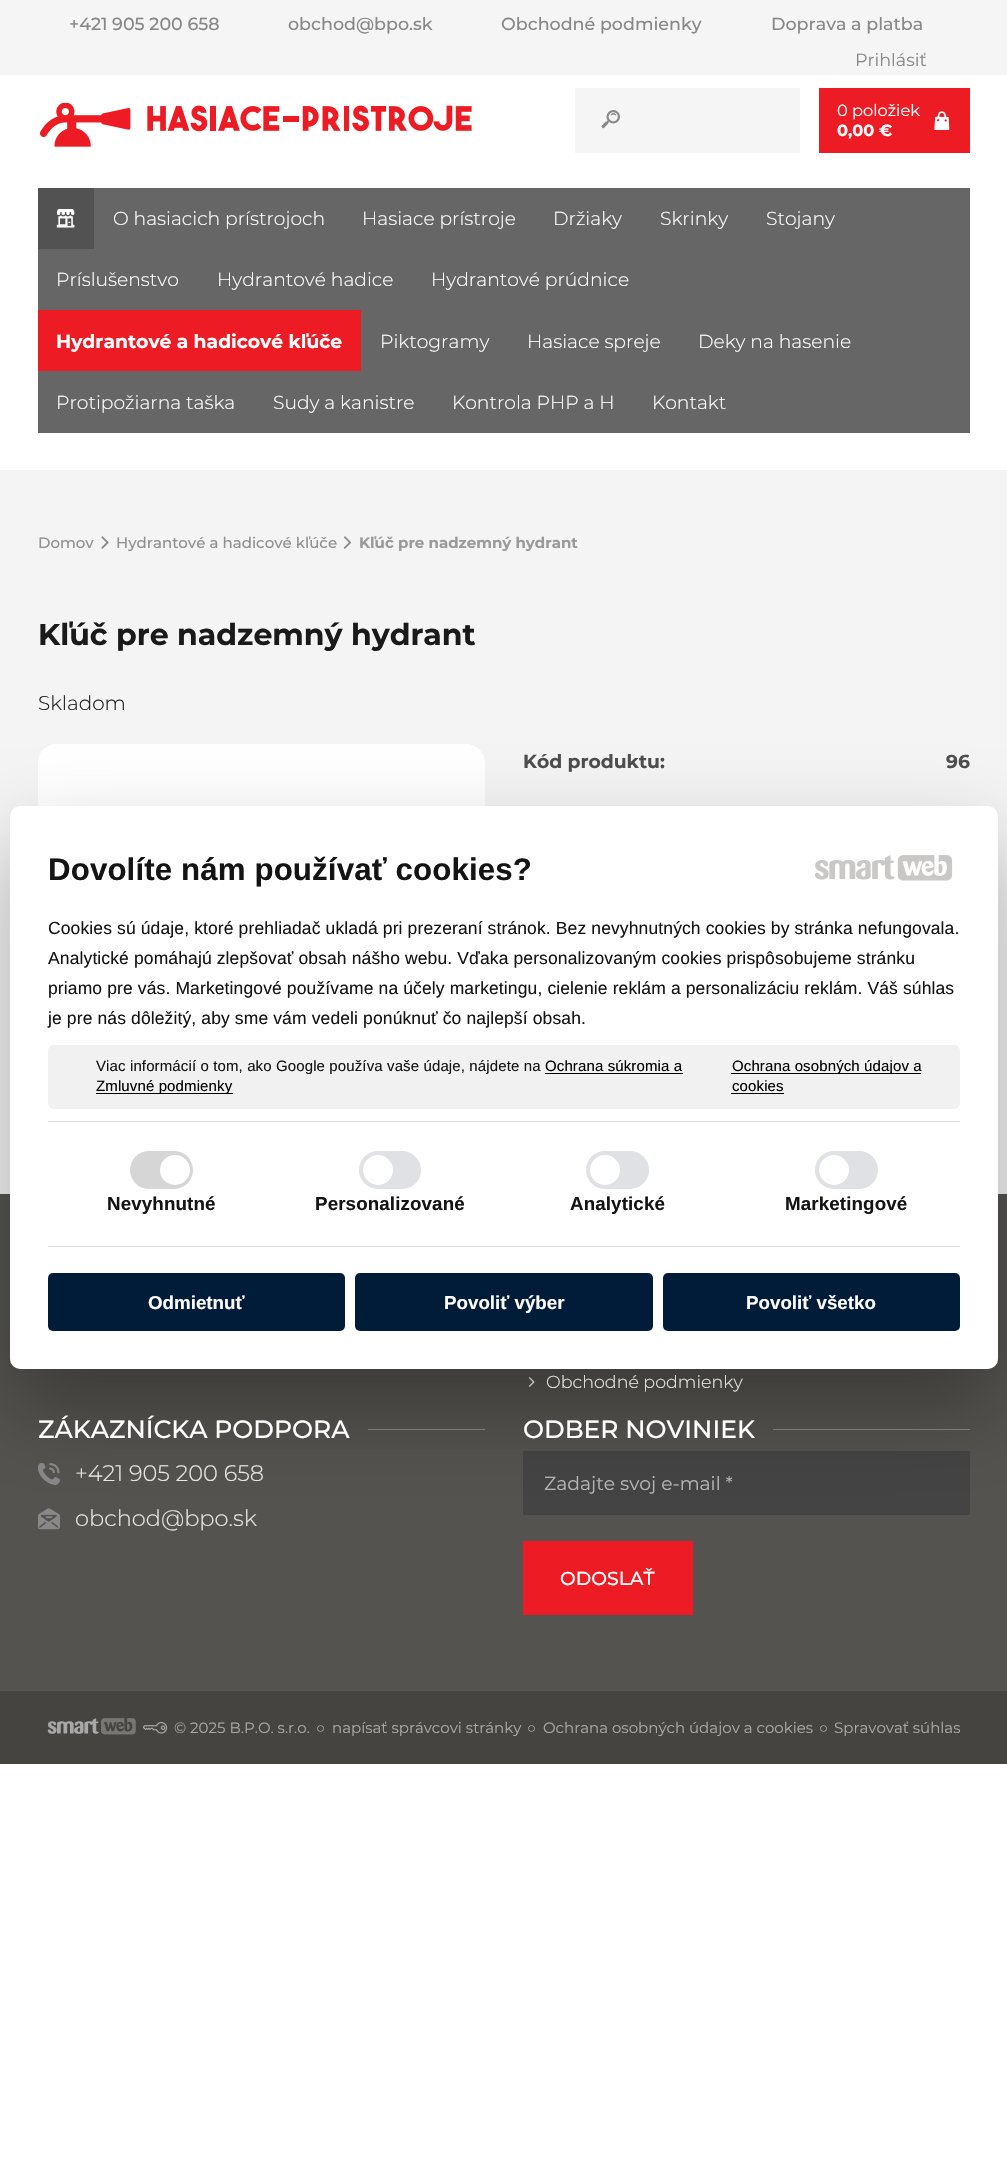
static SkFont makeFont(const char* family, int weight, float size, bool italic = false) {
  SkFontStyle style(weight, SkFontStyle::kNormal_Width,
    italic ? SkFontStyle::kItalic_Slant : SkFontStyle::kUpright_Slant);
  SkFont result(fontMgr->matchFamilyStyle(family, style), size);
  result.setSubpixel(true);
  return result;
}

static void text(SkCanvas* c, const char* s, float x, float y, const SkFont& font, SkColor color) {
  SkPaint ink(SkColor4f::FromColor(color));
  ink.setAntiAlias(true);
  c->drawString(s, x, y, font, ink);
}

static void spacedText(SkCanvas* c, const char* s, float x, float y, const SkFont& font, const SkPaint& ink, float letter, float word) {
  std::vector<SkGlyphID> glyphs(font.countText(s, strlen(s), SkTextEncoding::kUTF8));
  std::vector<float> xs(glyphs.size());
  font.textToGlyphs(s, strlen(s), SkTextEncoding::kUTF8, glyphs);
  font.getXPos(glyphs, xs, x);
  float extra = 0;
  for (size_t i = 0; i < glyphs.size(); i++) {
    xs[i] += extra;
    extra += letter + word * (glyphs[i] == font.unicharToGlyph(' '));
  }
  c->drawTextBlob(SkTextBlob::MakeFromPosHGlyphs(glyphs, xs, y, font), 0, 0, ink);
}

static void box(SkCanvas* c, float l, float t, float r, float b, SkColor color) {
  SkPaint ink(SkColor4f::FromColor(color));
  ink.setAntiAlias(true);
  c->drawRect(SkRect::MakeLTRB(l, t, r, b), ink);
}

static void roundBox(SkCanvas* c, float l, float t, float r, float b, float radius, SkColor color) {
  SkPaint ink(SkColor4f::FromColor(color));
  ink.setAntiAlias(true);
  c->drawRoundRect(SkRect::MakeLTRB(l, t, r, b), radius, radius, ink);
}

static void picture(SkCanvas* c, const char* path, float l, float t, float r, float b) {
  auto image = SkImages::DeferredFromEncodedData(SkData::MakeFromFileName(path));
  c->drawImageRect(image, SkRect::MakeLTRB(l, t, r, b), SkSamplingOptions());
}

void draw(SkCanvas* c) {
  SkPaint paint;
  paint.setAntiAlias(true);
  c->clear(0xffffffff);
  box(c, 0, 0, 1007, 75, 0xfff5f5f5);
  SkFont face1 = makeFont("Montserrat", 500, 17.5f);
  text(c, "+421 905 200 658", 69, 30, face1, 0xff888888);
  text(c, "obchod@bpo.sk", 288, 30, face1, 0xff888888);
  text(c, "Obchodné podmienky", 501, 30, face1, 0xff888888);
  text(c, "Doprava a platba", 771, 30, face1, 0xff888888);
  SkFont face2 = makeFont("Montserrat", 400, 17.5f);
  text(c, "Prihlásiť", 855, 66, face2, 0xff888888);
  picture(c, "img_01.png", 40, 103, 472, 147);
  box(c, 575, 88, 800, 153, 0xfff5f5f5);
  picture(c, "img_02.png", 601, 110, 620, 129);
  box(c, 819, 88, 970, 153, 0xffed1c24);
  SkFont face3 = makeFont("Montserrat", 400, 16.25f);
  text(c, "0 položiek", 837, 116, face3, 0xffffffff);
  SkFont face4 = makeFont("Montserrat", 700, 16.25f);
  text(c, "0,00 €", 837, 136, face4, 0xffffffff);
  picture(c, "img_03.png", 934, 111, 950, 130);
  box(c, 38, 188, 970, 433, 0xff666666);
  box(c, 38, 188, 94, 249, 0xff525252);
  picture(c, "img_04.png", 56, 209, 75, 228);
  SkFont face5 = makeFont("Montserrat", 300, 18.75f);
  text(c, "O hasiacich prístrojoch", 113, 225, face5, 0xffffffff);
  text(c, "Hasiace prístroje", 362, 225, face5, 0xffffffff);
  text(c, "Držiaky", 553, 225, face5, 0xffffffff);
  text(c, "Skrinky", 660, 225, face5, 0xffffffff);
  text(c, "Stojany", 766, 225, face5, 0xffffffff);
  text(c, "Príslušenstvo", 56, 286, face5, 0xffffffff);
  text(c, "Hydrantové hadice", 217, 286, face5, 0xffffffff);
  text(c, "Hydrantové prúdnice", 431, 286, face5, 0xffffffff);
  box(c, 38, 310, 361, 371, 0xffed1c24);
  SkFont face6 = makeFont("Montserrat", 700, 18.75f);
  text(c, "Hydrantové a hadicové kľúče", 56, 348, face6, 0xffffffff);
  text(c, "Piktogramy", 380, 348, face5, 0xffffffff);
  text(c, "Hasiace spreje", 527, 348, face5, 0xffffffff);
  text(c, "Deky na hasenie", 698, 348, face5, 0xffffffff);
  text(c, "Protipožiarna taška", 56, 409, face5, 0xffffffff);
  text(c, "Sudy a kanistre", 273, 409, face5, 0xffffffff);
  text(c, "Kontrola PHP a H", 452, 409, face5, 0xffffffff);
  text(c, "Kontakt", 652, 409, face5, 0xffffffff);
  box(c, 0, 470, 1007, 1194, 0xfff4f4f4);
  SkFont face7 = makeFont("Montserrat", 500, 15);
  text(c, "Domov", 38, 548, face7, 0xff909090);
  picture(c, "img_05.png", 101, 536, 109, 549);
  text(c, "Hydrantové a hadicové kľúče", 116, 548, face7, 0xff909090);
  picture(c, "img_06.png", 343, 536, 352, 549);
  SkFont face8 = makeFont("Montserrat", 700, 15);
  text(c, "Kľúč pre nadzemný hydrant", 359, 548, face8, 0xff9a9a9a);
  SkFont face9 = makeFont("Montserrat", 700, 30);
  text(c, "Kľúč pre nadzemný hydrant", 38, 645, face9, 0xff1a1a1a);
  SkFont face10 = makeFont("Montserrat", 300, 20);
  text(c, "Skladom", 38, 710, face10, 0xff1a1a1a);
  picture(c, "img_07.png", 38, 744, 485, 806);
  text(c, "Kód produktu:", 523, 768, face6, 0xff4d4d4d);
  text(c, "96", 946, 768, face6, 0xff4d4d4d);
  box(c, 0, 1194, 1007, 1691, 0xff54534f);
  picture(c, "img_10.png", 528, 1377, 535, 1387);
  box(c, 368, 1429, 485, 1430, 0xff878784);
  picture(c, "img_11.png", 38, 1463, 60, 1485);
  picture(c, "img_12.png", 38, 1508, 60, 1530);
  box(c, 773, 1429, 970, 1430, 0xff878784);
  box(c, 523, 1451, 970, 1515, 0xff444444);
  paint.setColor(0x4d000000);
  paint.setMaskFilter(SkMaskFilter::MakeBlur(kNormal_SkBlurStyle, 42.5f));
  c->drawRoundRect(SkRect::MakeLTRB(10, 846, 998, 1409), 10, 10, paint);
  paint.setMaskFilter(nullptr);
  roundBox(c, 10, 806, 998, 1369, 10, 0xffffffff);
  SkFont face11 = makeFont("Liberation Sans", 700, 31.25f);
  paint.setColor(0xff141414);
  spacedText(c, "Dovolíte nám používať cookies?", 48, 880, face11, paint, 0.12f, 0);
  picture(c, "img_08.png", 815, 855, 895, 880);
  picture(c, "img_09.png", 897, 855, 953, 881);
  SkFont face12 = makeFont("Liberation Sans", 400, 17.5f);
  spacedText(c, "Cookies sú údaje, ktoré prehliadač ukladá pri prezeraní stránok. Bez nevyhnutných cookies by stránka nefungovala.", 48, 934, face12, paint, 0.12f, 0);
  spacedText(c, "Analytické pomáhajú zlepšovať obsah nášho webu. Vďaka personalizovaným cookies prispôsobujeme stránku", 48, 964, face12, paint, 0.12f, 0);
  spacedText(c, "priamo pre vás. Marketingové používame na účely marketingu, cielenie reklám a personalizáciu reklám. Váš súhlas", 48, 994, face12, paint, 0.12f, 0);
  spacedText(c, "je pre nás dôležitý, aby sme vám vedeli ponúknuť čo najlepší obsah.", 48, 1024, face12, paint, 0.12f, 0);
  roundBox(c, 48, 1045, 960, 1109, 6, 0xfff1f1f1);
  SkFont face13 = makeFont("Liberation Sans", 400, 15);
  spacedText(c, "Viac informácií o tom, ako Google používa vaše údaje, nájdete na", 96, 1071, face13, paint, 0.12f, 0);
  paint.setColor(0xff000000);
  spacedText(c, "Ochrana súkromia a", 545, 1071, face13, paint, 0.12f, 0);
  box(c, 545, 1073, 683, 1074, 0xff000000);
  box(c, 96, 1093, 233, 1094, 0xff000000);
  spacedText(c, "Zmluvné podmienky", 96, 1091, face13, paint, 0.12f, 0);
  box(c, 731, 1073, 921, 1074, 0xff000000);
  spacedText(c, "Ochrana osobných údajov a", 732, 1071, face13, paint, 0.12f, 0);
  spacedText(c, "cookies", 732, 1091, face13, paint, 0.12f, 0);
  box(c, 731, 1093, 784, 1094, 0xff000000);
  box(c, 48, 1121, 960, 1122, 0xffdddddd);
  box(c, 48, 1246, 960, 1247, 0xffdddddd);
  roundBox(c, 130, 1151, 193, 1189, 19, 0xffd6d6d6);
  paint.setColor(0xffffffff);
  c->drawCircle(175, 1170, 15, paint);
  SkFont face14 = makeFont("Liberation Sans", 700, 18.75f);
  paint.setColor(0xff141414);
  spacedText(c, "Nevyhnutné", 107, 1210, face14, paint, 0.12f, 0);
  roundBox(c, 359, 1151, 421, 1189, 19, 0xffdfe1e4);
  paint.setColor(0xffffffff);
  c->drawCircle(378, 1170, 15, paint);
  paint.setColor(0xff141414);
  spacedText(c, "Personalizované", 315, 1210, face14, paint, 0.12f, 0);
  roundBox(c, 586, 1151, 649, 1189, 19, 0xffdfe1e4);
  paint.setColor(0xffffffff);
  c->drawCircle(605, 1170, 15, paint);
  paint.setColor(0xff141414);
  spacedText(c, "Analytické", 570, 1210, face14, paint, 0.12f, 0);
  roundBox(c, 815, 1151, 878, 1189, 19, 0xffdfe1e4);
  paint.setColor(0xffffffff);
  c->drawCircle(834, 1170, 15, paint);
  paint.setColor(0xff141414);
  spacedText(c, "Marketingové", 785, 1210, face14, paint, 0.12f, 0);
  roundBox(c, 48, 1273, 345, 1331, 5, 0xff011c38);
  text(c, "Odmietnuť", 148, 1309, face14, 0xffffffff);
  roundBox(c, 355, 1273, 653, 1331, 5, 0xff011c38);
  text(c, "Povoliť výber", 444, 1309, face14, 0xffffffff);
  roundBox(c, 663, 1273, 960, 1331, 5, 0xff011c38);
  text(c, "Povoliť všetko", 746, 1309, face14, 0xffffffff);
  SkFont face15 = makeFont("Montserrat", 300, 17.5f);
  text(c, "Obchodné podmienky", 546, 1388, face15, 0xffe6e6e6);
  SkFont face16 = makeFont("Montserrat", 500, 25);
  text(c, "ZÁKAZNÍCKA PODPORA", 38, 1438, face16, 0xffffffff);
  SkFont face17 = makeFont("Montserrat", 300, 22.5f);
  text(c, "+421 905 200 658", 75, 1481, face17, 0xffe6e6e6);
  text(c, "obchod@bpo.sk", 75, 1526, face17, 0xffe6e6e6);
  text(c, "ODBER NOVINIEK", 523, 1438, face16, 0xffffffff);
  SkFont face18 = makeFont("Montserrat", 400, 18.75f);
  text(c, "Zadajte svoj e-mail *", 544, 1490, face18, 0xffb4b4b4);
  box(c, 523, 1541, 693, 1615, 0xffed1c24);
  SkFont face19 = makeFont("Montserrat", 500, 18.75f);
  text(c, "ODOSLAŤ", 560, 1585, face19, 0xffffffff);
  box(c, 0, 1691, 1007, 1764, 0xff454440);
  picture(c, "img_13.png", 47, 1718, 99, 1734);
  picture(c, "img_14.png", 101, 1718, 136, 1735);
  picture(c, "img_15.png", 143, 1722, 168, 1734);
  SkFont face20 = makeFont("Montserrat", 400, 15);
  text(c, "© 2025 B.P.O. s.r.o.", 174, 1733, face20, 0xffa8a8a8);
  text(c, "○", 316, 1733, face13, 0xffa8a8a8);
  text(c, "napísať správcovi stránky", 332, 1733, face20, 0xffa8a8a8);
  text(c, "○", 527, 1733, face13, 0xffa8a8a8);
  text(c, "Ochrana osobných údajov a cookies", 543, 1733, face20, 0xffa8a8a8);
  text(c, "○", 819, 1733, face13, 0xffa8a8a8);
  text(c, "Spravovať súhlas", 834, 1733, face20, 0xffa8a8a8);
}
